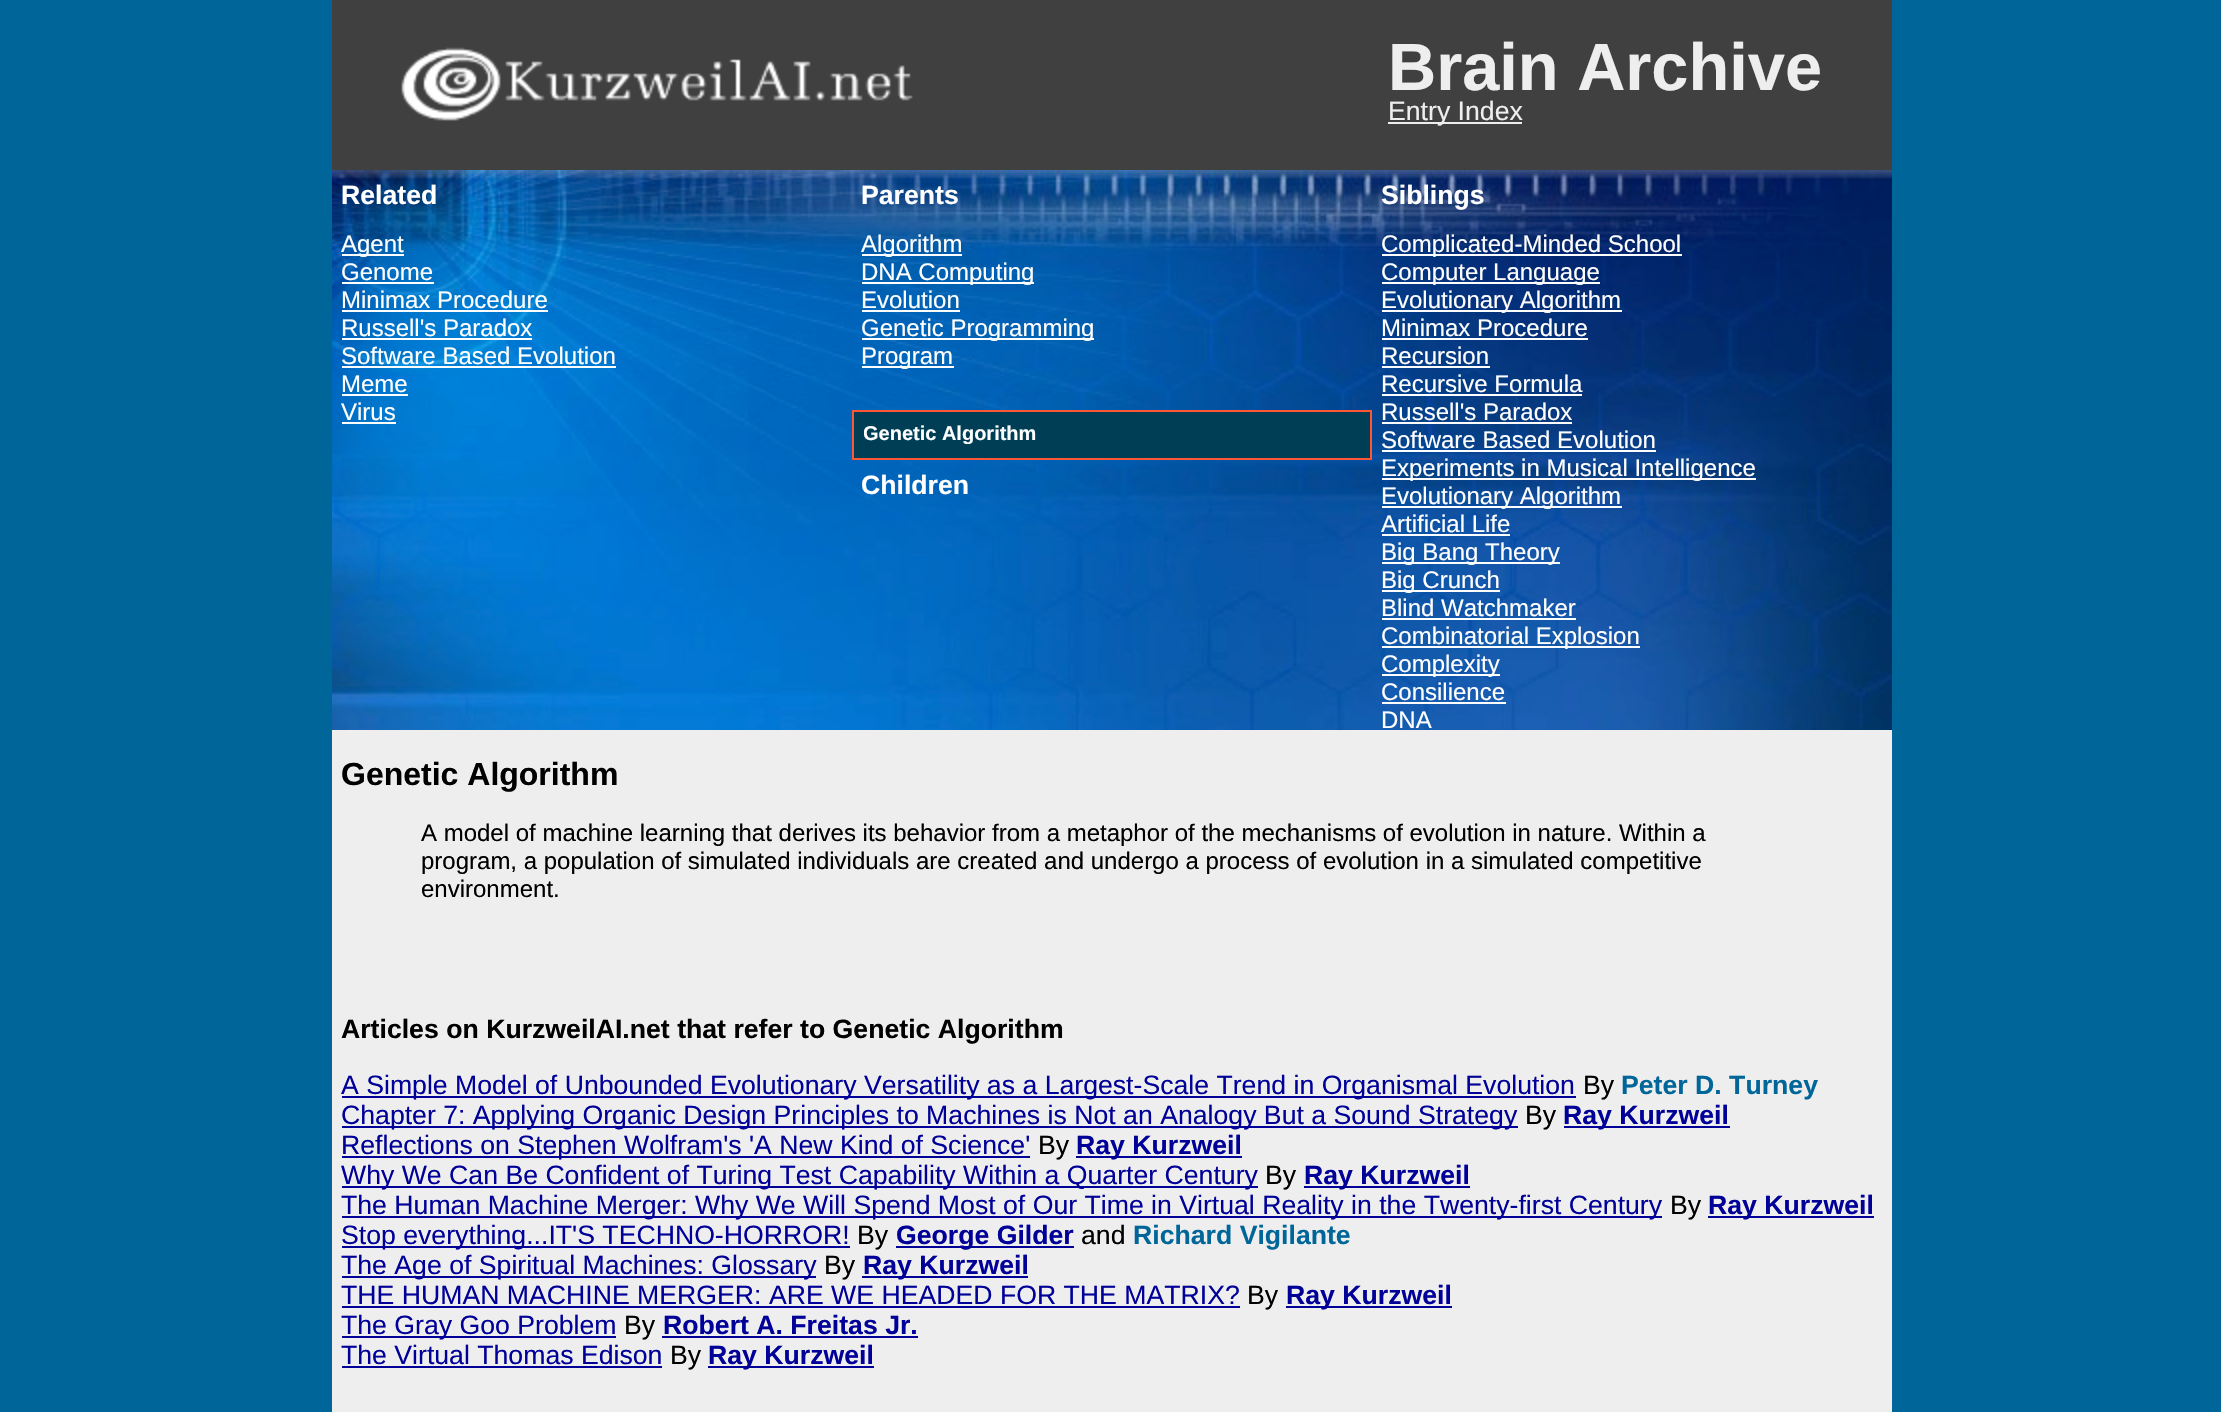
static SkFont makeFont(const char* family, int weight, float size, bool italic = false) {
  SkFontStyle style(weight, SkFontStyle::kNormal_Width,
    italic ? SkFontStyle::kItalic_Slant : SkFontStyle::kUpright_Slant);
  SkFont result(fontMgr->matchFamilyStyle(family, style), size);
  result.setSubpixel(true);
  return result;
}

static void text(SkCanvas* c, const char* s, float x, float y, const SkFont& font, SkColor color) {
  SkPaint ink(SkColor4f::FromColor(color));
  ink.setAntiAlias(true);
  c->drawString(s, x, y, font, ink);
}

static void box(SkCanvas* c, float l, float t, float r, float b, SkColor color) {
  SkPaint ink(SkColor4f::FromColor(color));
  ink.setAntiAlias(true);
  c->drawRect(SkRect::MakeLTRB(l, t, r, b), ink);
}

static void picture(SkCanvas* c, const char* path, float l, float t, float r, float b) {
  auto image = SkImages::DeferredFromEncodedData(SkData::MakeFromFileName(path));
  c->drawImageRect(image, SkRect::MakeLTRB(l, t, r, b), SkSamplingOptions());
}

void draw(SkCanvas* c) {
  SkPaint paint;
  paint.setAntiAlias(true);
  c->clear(0xff006699);
  box(c, 332, 0, 1892, 170, 0xff404040);
  picture(c, "img_01.png", 401, 47, 913, 121);
  SkFont face1 = makeFont("Liberation Sans", 700, 66.75f);
  text(c, "Brain Archive", 1388, 90, face1, 0xffeeeeee);
  box(c, 1388, 122, 1522, 124, 0xffeeeeee);
  SkFont face2 = makeFont("Liberation Sans", 400, 26.65f);
  text(c, "Entry Index", 1388, 120, face2, 0xffeeeeee);
  picture(c, "img_02.png", 332, 170, 1892, 730);
  SkFont face3 = makeFont("Liberation Sans", 700, 26.65f);
  text(c, "Related", 341, 204, face3, 0xffffffff);
  box(c, 342, 254, 404, 256, 0xffffffff);
  SkFont face4 = makeFont("Liberation Sans", 400, 24);
  text(c, "Agent", 341, 252, face4, 0xffffffff);
  text(c, "Genome", 341, 280, face4, 0xffffffff);
  box(c, 342, 282, 434, 284, 0xffffffff);
  text(c, "Minimax Procedure", 341, 308, face4, 0xffffffff);
  box(c, 342, 310, 548, 312, 0xffffffff);
  text(c, "Russell's Paradox", 341, 336, face4, 0xffffffff);
  box(c, 342, 338, 532, 340, 0xffffffff);
  text(c, "Software Based Evolution", 341, 364, face4, 0xffffffff);
  box(c, 342, 366, 616, 368, 0xffffffff);
  text(c, "Meme", 341, 392, face4, 0xffffffff);
  box(c, 342, 394, 408, 396, 0xffffffff);
  text(c, "Virus", 341, 420, face4, 0xffffffff);
  box(c, 342, 422, 396, 424, 0xffffffff);
  text(c, "Parents", 861, 204, face3, 0xffffffff);
  box(c, 862, 254, 962, 256, 0xffffffff);
  text(c, "Algorithm", 861, 252, face4, 0xffffffff);
  box(c, 862, 282, 1034, 284, 0xffffffff);
  text(c, "DNA Computing", 861, 280, face4, 0xffffffff);
  text(c, "Evolution", 861, 308, face4, 0xffffffff);
  box(c, 862, 310, 960, 312, 0xffffffff);
  box(c, 862, 338, 1094, 340, 0xffffffff);
  text(c, "Genetic Programming", 861, 336, face4, 0xffffffff);
  box(c, 862, 366, 954, 368, 0xffffffff);
  text(c, "Program", 861, 364, face4, 0xffffffff);
  paint.setColor(0xff003e55);
  c->drawRect(SkRect::MakeLTRB(853, 411, 1371, 459), paint);
  paint.setStyle(SkPaint::kStroke_Style);
  paint.setStrokeWidth(2);
  paint.setColor(0xffff5735);
  c->drawRect(SkRect::MakeLTRB(853, 411, 1371, 459), paint);
  c->save();
  c->clipRect(SkRect::MakeLTRB(864, 422, 1360, 444));
  SkFont face5 = makeFont("Liberation Sans", 700, 20);
  text(c, "Genetic Algorithm", 863, 440, face5, 0xffffffff);
  c->restore();
  text(c, "Children", 861, 494, face3, 0xffffffff);
  text(c, "Siblings", 1381, 204, face3, 0xffffffff);
  box(c, 1382, 254, 1682, 256, 0xffffffff);
  text(c, "Complicated-Minded School", 1381, 252, face4, 0xffffffff);
  box(c, 1382, 282, 1600, 284, 0xffffffff);
  text(c, "Computer Language", 1381, 280, face4, 0xffffffff);
  box(c, 1382, 310, 1622, 312, 0xffffffff);
  text(c, "Evolutionary Algorithm", 1381, 308, face4, 0xffffffff);
  text(c, "Minimax Procedure", 1381, 336, face4, 0xffffffff);
  box(c, 1382, 338, 1588, 340, 0xffffffff);
  text(c, "Recursion", 1381, 364, face4, 0xffffffff);
  box(c, 1382, 366, 1490, 368, 0xffffffff);
  text(c, "Recursive Formula", 1381, 392, face4, 0xffffffff);
  box(c, 1382, 394, 1582, 396, 0xffffffff);
  text(c, "Russell's Paradox", 1381, 420, face4, 0xffffffff);
  box(c, 1382, 422, 1572, 424, 0xffffffff);
  text(c, "Software Based Evolution", 1381, 448, face4, 0xffffffff);
  box(c, 1382, 450, 1656, 452, 0xffffffff);
  box(c, 1382, 478, 1756, 480, 0xffffffff);
  text(c, "Experiments in Musical Intelligence", 1381, 476, face4, 0xffffffff);
  box(c, 1382, 506, 1622, 508, 0xffffffff);
  text(c, "Evolutionary Algorithm", 1381, 504, face4, 0xffffffff);
  text(c, "Artificial Life", 1381, 532, face4, 0xffffffff);
  box(c, 1382, 534, 1510, 536, 0xffffffff);
  box(c, 1382, 562, 1560, 564, 0xffffffff);
  text(c, "Big Bang Theory", 1381, 560, face4, 0xffffffff);
  box(c, 1382, 590, 1500, 592, 0xffffffff);
  text(c, "Big Crunch", 1381, 588, face4, 0xffffffff);
  text(c, "Blind Watchmaker", 1381, 616, face4, 0xffffffff);
  box(c, 1382, 618, 1576, 620, 0xffffffff);
  box(c, 1382, 646, 1640, 648, 0xffffffff);
  text(c, "Combinatorial Explosion", 1381, 644, face4, 0xffffffff);
  box(c, 1382, 674, 1500, 676, 0xffffffff);
  text(c, "Complexity", 1381, 672, face4, 0xffffffff);
  text(c, "Consilience", 1381, 700, face4, 0xffffffff);
  box(c, 1382, 702, 1506, 704, 0xffffffff);
  text(c, "DNA", 1381, 728, face4, 0xffffffff);
  box(c, 332, 730, 1892, 1412, 0xffeeeeee);
  SkFont face6 = makeFont("Liberation Sans", 700, 32);
  text(c, "Genetic Algorithm", 341, 785, face6, 0xff000000);
  text(c, "A model of machine learning that derives its behavior from a metaphor of the mechanisms of evolution in nature. Within a", 421, 841, face4, 0xff000000);
  text(c, "program, a population of simulated individuals are created and undergo a process of evolution in a simulated competitive", 421, 869, face4, 0xff000000);
  text(c, "environment.", 421, 897, face4, 0xff000000);
  text(c, "Articles on KurzweilAI.net that refer to Genetic Algorithm", 341, 1038, face3, 0xff000000);
  box(c, 342, 1096, 1576, 1098, 0xff000099);
  text(c, "A Simple Model of Unbounded Evolutionary Versatility as a Largest-Scale Trend in Organismal Evolution", 341, 1094, face2, 0xff000099);
  text(c, "By", 1583, 1094, face2, 0xff000000);
  text(c, "Peter D. Turney", 1621, 1094, face3, 0xff006699);
  box(c, 342, 1126, 1518, 1128, 0xff000099);
  text(c, "Chapter 7: Applying Organic Design Principles to Machines is Not an Analogy But a Sound Strategy", 341, 1124, face2, 0xff000099);
  text(c, "By", 1525, 1124, face2, 0xff000000);
  box(c, 1564, 1126, 1730, 1128, 0xff000099);
  text(c, "Ray Kurzweil", 1563, 1124, face3, 0xff000099);
  box(c, 342, 1156, 1030, 1158, 0xff000099);
  text(c, "Reflections on Stephen Wolfram's 'A New Kind of Science'", 341, 1154, face2, 0xff000099);
  text(c, "By", 1038, 1154, face2, 0xff000000);
  box(c, 1076, 1156, 1242, 1158, 0xff000099);
  text(c, "Ray Kurzweil", 1076, 1154, face3, 0xff000099);
  box(c, 342, 1186, 1258, 1188, 0xff000099);
  text(c, "Why We Can Be Confident of Turing Test Capability Within a Quarter Century", 341, 1184, face2, 0xff000099);
  text(c, "By", 1265, 1184, face2, 0xff000000);
  box(c, 1304, 1186, 1470, 1188, 0xff000099);
  text(c, "Ray Kurzweil", 1304, 1184, face3, 0xff000099);
  box(c, 342, 1216, 1662, 1218, 0xff000099);
  text(c, "The Human Machine Merger: Why We Will Spend Most of Our Time in Virtual Reality in the Twenty-first Century", 341, 1214, face2, 0xff000099);
  text(c, "By", 1670, 1214, face2, 0xff000000);
  box(c, 1708, 1216, 1874, 1218, 0xff000099);
  text(c, "Ray Kurzweil", 1708, 1214, face3, 0xff000099);
  box(c, 342, 1246, 850, 1248, 0xff000099);
  text(c, "Stop everything...IT'S TECHNO-HORROR!", 341, 1244, face2, 0xff000099);
  text(c, "By", 857, 1244, face2, 0xff000000);
  box(c, 896, 1246, 1074, 1248, 0xff000099);
  text(c, "George Gilder", 896, 1244, face3, 0xff000099);
  text(c, "and", 1081, 1244, face2, 0xff000000);
  text(c, "Richard Vigilante", 1133, 1244, face3, 0xff006699);
  box(c, 342, 1276, 816, 1278, 0xff000099);
  text(c, "The Age of Spiritual Machines: Glossary", 341, 1274, face2, 0xff000099);
  text(c, "By", 824, 1274, face2, 0xff000000);
  box(c, 862, 1276, 1028, 1278, 0xff000099);
  text(c, "Ray Kurzweil", 863, 1274, face3, 0xff000099);
  text(c, "THE HUMAN MACHINE MERGER: ARE WE HEADED FOR THE MATRIX?", 341, 1304, face2, 0xff000099);
  box(c, 342, 1306, 1240, 1308, 0xff000099);
  text(c, "By", 1247, 1304, face2, 0xff000000);
  box(c, 1286, 1306, 1452, 1308, 0xff000099);
  text(c, "Ray Kurzweil", 1286, 1304, face3, 0xff000099);
  box(c, 342, 1336, 616, 1338, 0xff000099);
  text(c, "The Gray Goo Problem", 341, 1334, face2, 0xff000099);
  text(c, "By", 624, 1334, face2, 0xff000000);
  text(c, "Robert A. Freitas Jr.", 663, 1334, face3, 0xff000099);
  box(c, 662, 1336, 918, 1338, 0xff000099);
  text(c, "The Virtual Thomas Edison", 341, 1364, face2, 0xff000099);
  box(c, 342, 1366, 662, 1368, 0xff000099);
  text(c, "By", 670, 1364, face2, 0xff000000);
  box(c, 708, 1366, 874, 1368, 0xff000099);
  text(c, "Ray Kurzweil", 708, 1364, face3, 0xff000099);
}
